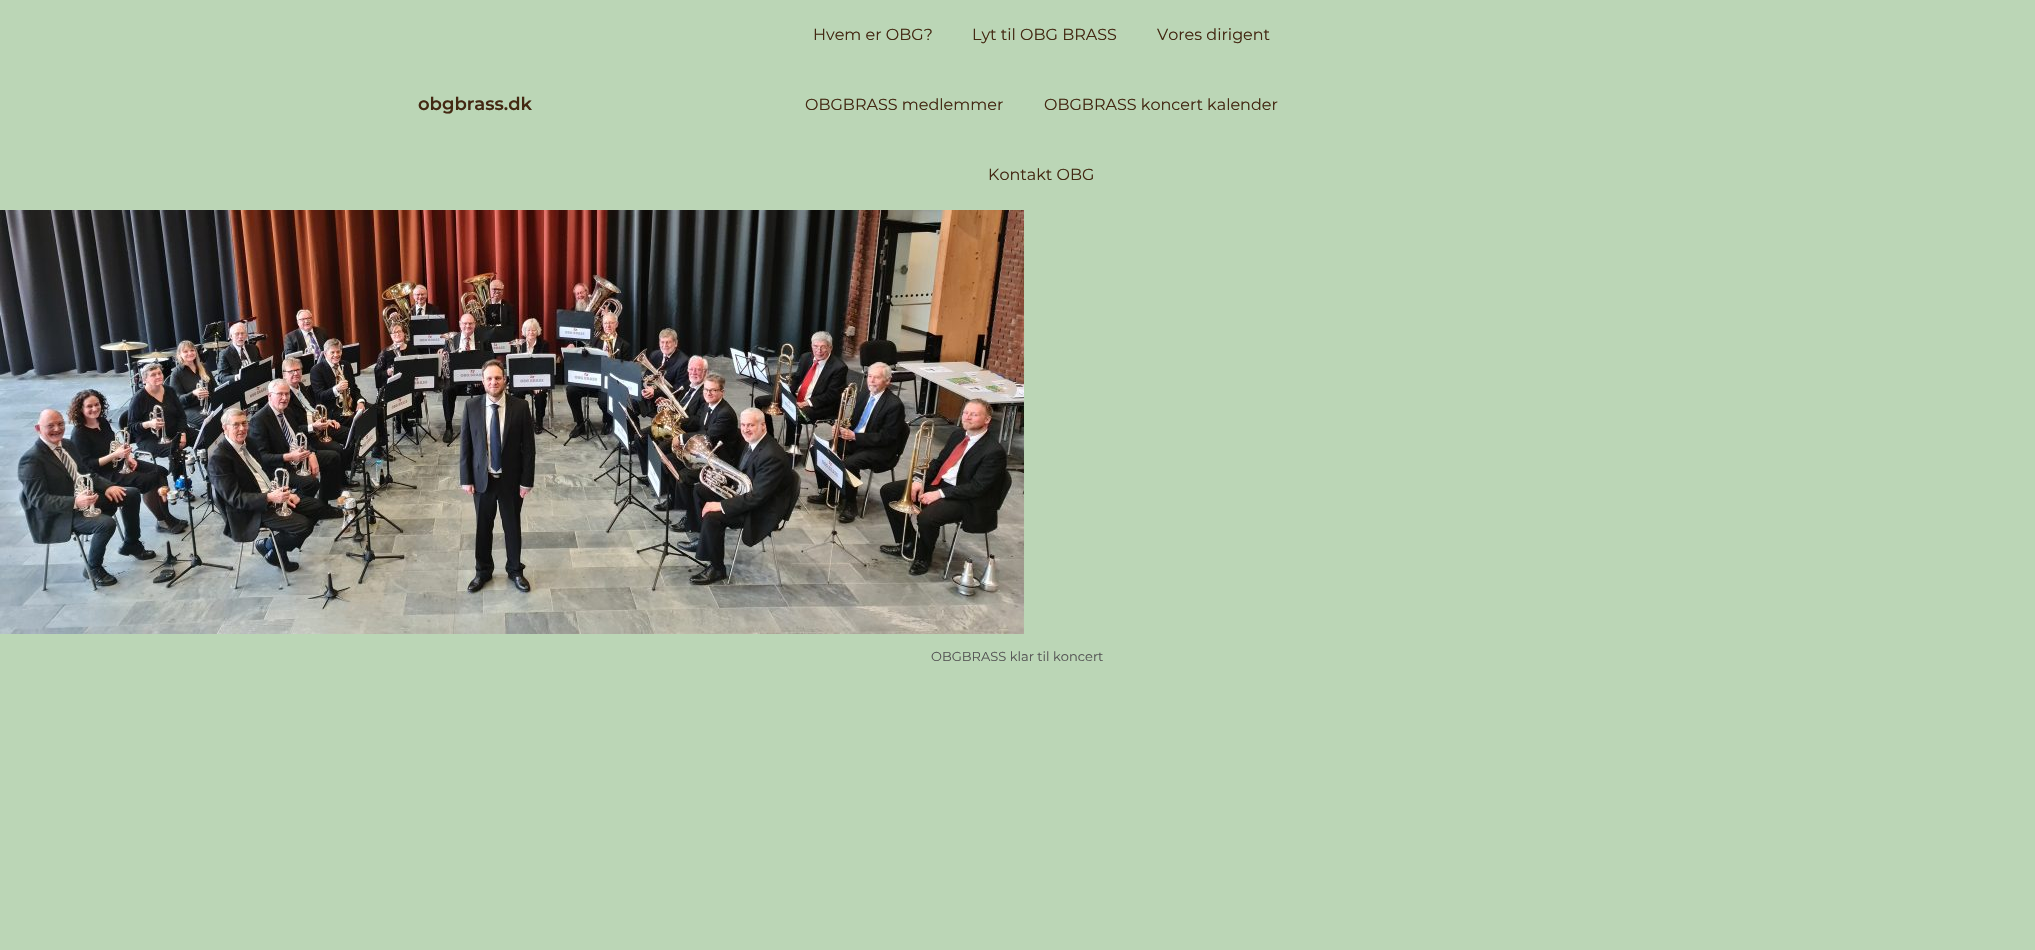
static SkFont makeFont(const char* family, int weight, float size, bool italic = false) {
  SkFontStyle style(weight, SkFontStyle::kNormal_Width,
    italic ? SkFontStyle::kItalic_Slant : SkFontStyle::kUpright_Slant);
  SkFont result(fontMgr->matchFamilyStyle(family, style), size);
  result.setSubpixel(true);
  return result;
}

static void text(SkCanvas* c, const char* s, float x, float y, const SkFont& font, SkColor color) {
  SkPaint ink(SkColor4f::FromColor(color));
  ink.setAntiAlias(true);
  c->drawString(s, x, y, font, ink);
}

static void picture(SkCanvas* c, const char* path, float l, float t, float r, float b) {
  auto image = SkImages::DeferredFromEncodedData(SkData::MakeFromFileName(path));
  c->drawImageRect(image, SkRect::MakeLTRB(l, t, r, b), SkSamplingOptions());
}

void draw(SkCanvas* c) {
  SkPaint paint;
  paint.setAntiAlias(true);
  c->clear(0xffbbd6b6);
  SkFont face1 = makeFont("Montserrat", 600, 18);
  text(c, "obgbrass.dk", 418, 110, face1, 0xff432812);
  SkFont face2 = makeFont("Montserrat", 400, 16);
  text(c, "Hvem er OBG?", 813, 40, face2, 0xff432812);
  text(c, "Lyt til OBG BRASS", 972, 40, face2, 0xff432812);
  text(c, "Vores dirigent", 1157, 40, face2, 0xff432812);
  text(c, "OBGBRASS medlemmer", 805, 110, face2, 0xff432812);
  text(c, "OBGBRASS koncert kalender", 1044, 110, face2, 0xff432812);
  text(c, "Kontakt OBG", 988, 180, face2, 0xff432812);
  picture(c, "img_01.png", 0, 210, 1024, 634);
  SkFont face3 = makeFont("Montserrat", 400, 13);
  text(c, "OBGBRASS klar til koncert", 931, 661, face3, 0xff555555);
}
